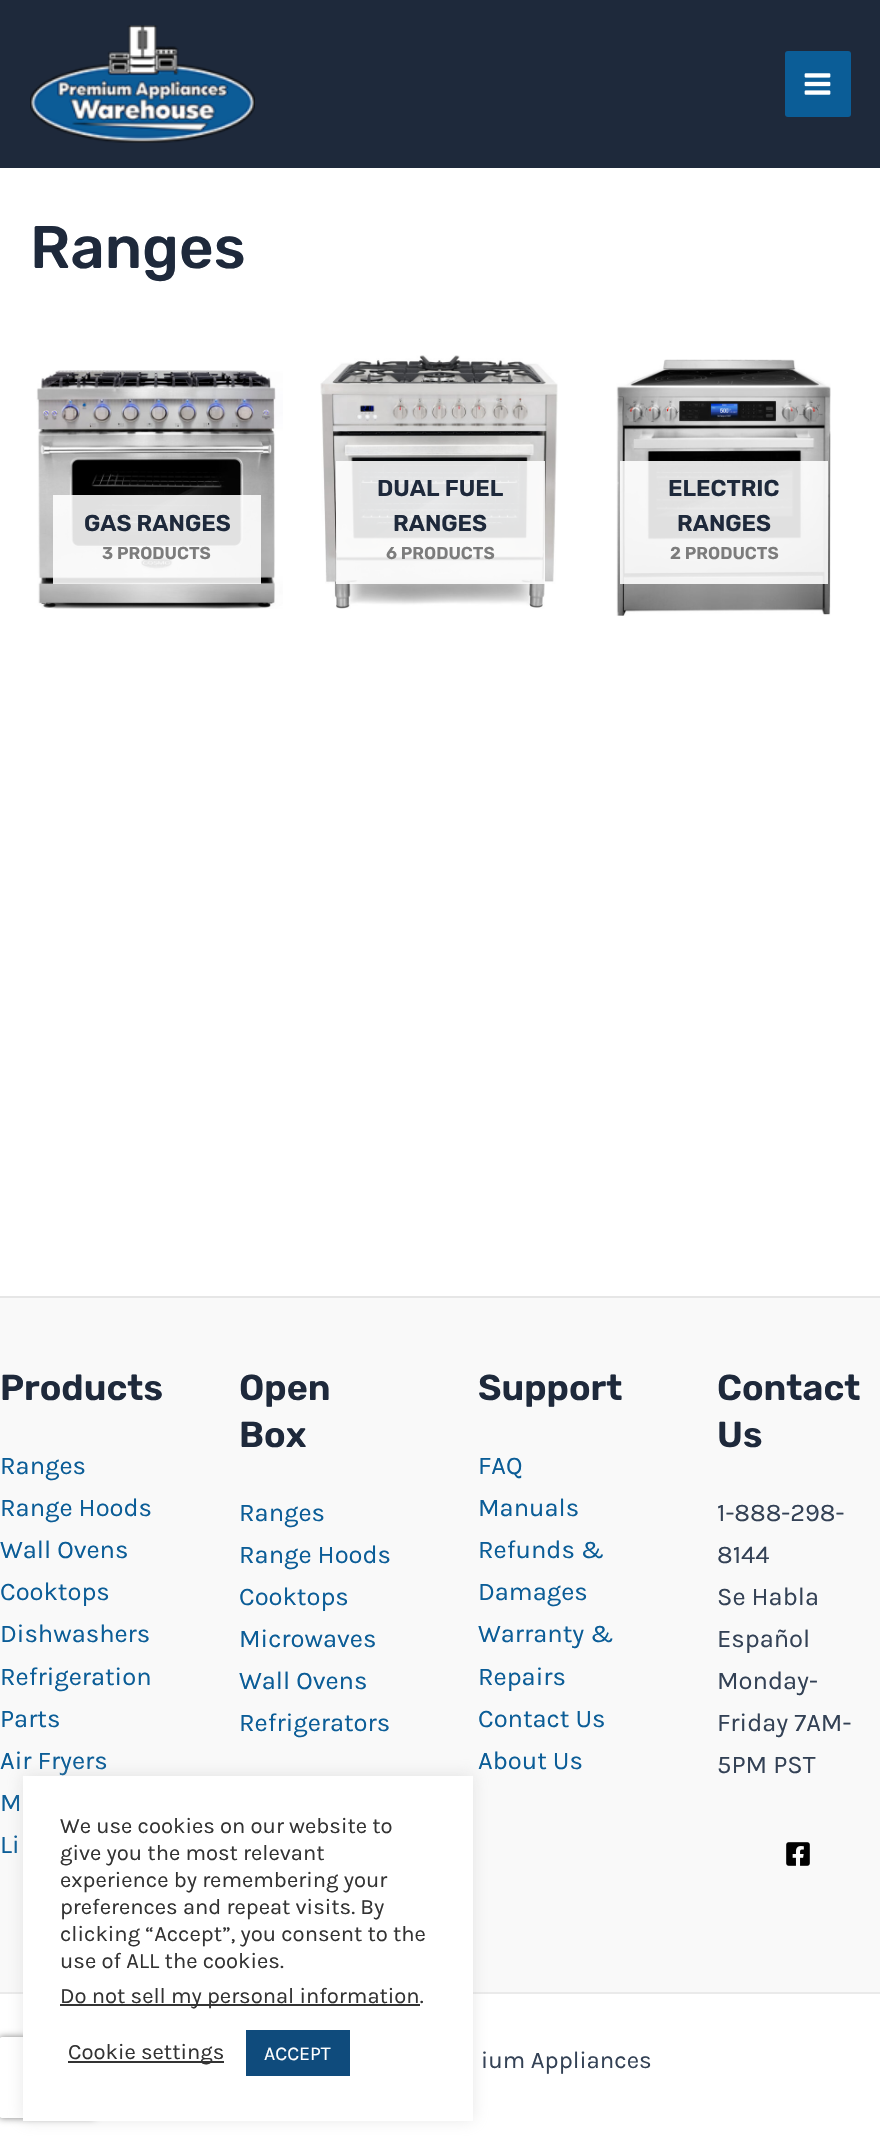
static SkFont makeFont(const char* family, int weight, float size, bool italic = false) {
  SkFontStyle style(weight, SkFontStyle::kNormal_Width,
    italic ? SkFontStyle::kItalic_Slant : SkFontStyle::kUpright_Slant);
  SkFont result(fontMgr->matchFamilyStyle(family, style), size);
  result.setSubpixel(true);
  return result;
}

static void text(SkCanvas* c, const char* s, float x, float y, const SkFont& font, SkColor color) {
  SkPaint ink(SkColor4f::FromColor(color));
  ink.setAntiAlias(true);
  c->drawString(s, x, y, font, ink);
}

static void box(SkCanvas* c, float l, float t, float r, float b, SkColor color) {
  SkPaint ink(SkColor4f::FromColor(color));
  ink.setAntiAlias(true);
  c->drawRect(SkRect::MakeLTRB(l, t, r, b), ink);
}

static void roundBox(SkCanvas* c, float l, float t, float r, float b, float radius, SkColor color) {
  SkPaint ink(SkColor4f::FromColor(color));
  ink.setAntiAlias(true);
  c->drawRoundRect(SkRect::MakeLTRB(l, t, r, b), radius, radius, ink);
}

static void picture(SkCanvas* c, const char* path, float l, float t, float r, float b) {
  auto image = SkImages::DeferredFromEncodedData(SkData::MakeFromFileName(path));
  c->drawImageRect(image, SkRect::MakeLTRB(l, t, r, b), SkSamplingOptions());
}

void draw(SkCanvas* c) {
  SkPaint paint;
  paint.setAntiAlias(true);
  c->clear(0xffffffff);
  box(c, 0, 0, 880, 168, 0xff1e293b);
  picture(c, "img_01.png", 30, 25, 255, 143);
  roundBox(c, 785, 51, 851, 117, 3, 0xff0b5d97);
  picture(c, "img_02.png", 804, 73, 831, 95);
  SkFont face1 = makeFont("Rubik", 500, 60);
  text(c, "Ranges", 30, 268, face1, 0xff1e293b);
  picture(c, "img_03.png", 36, 370, 283, 609);
  box(c, 53, 495, 261, 584, 0xe0ffffff);
  SkFont face2 = makeFont("Rubik", 600, 23);
  text(c, "GAS RANGES", 84, 531, face2, 0xff1e293b);
  SkFont face3 = makeFont("Rubik", 600, 17.25f);
  text(c, "3 PRODUCTS", 102, 559, face3, 0xff7c7c7c);
  picture(c, "img_04.png", 320, 355, 558, 609);
  box(c, 336, 461, 545, 584, 0xe0ffffff);
  text(c, "DUAL FUEL", 377, 496, face2, 0xff1e293b);
  text(c, "RANGES", 393, 531, face2, 0xff1e293b);
  text(c, "6 PRODUCTS", 386, 559, face3, 0xff7c7c7c);
  picture(c, "img_05.png", 616, 359, 831, 616);
  box(c, 620, 461, 828, 584, 0xe0ffffff);
  text(c, "ELECTRIC", 668, 496, face2, 0xff1e293b);
  text(c, "RANGES", 677, 531, face2, 0xff1e293b);
  text(c, "2 PRODUCTS", 670, 559, face3, 0xff7c7c7c);
  box(c, 0, 1298, 880, 1992, 0xfff9f9f9);
  box(c, 0, 1296, 880, 1298, 0xffe6e6e6);
  SkFont face4 = makeFont("Rubik", 600, 36);
  text(c, "Products", 0, 1400, face4, 0xff1e293b);
  SkFont face5 = makeFont("Karla", 400, 25.5f);
  text(c, "Ranges", 0, 1474, face5, 0xff0b5d97);
  text(c, "Range Hoods", 0, 1516, face5, 0xff0b5d97);
  text(c, "Wall Ovens", 0, 1558, face5, 0xff0b5d97);
  text(c, "Cooktops", 0, 1600, face5, 0xff0b5d97);
  text(c, "Dishwashers", 0, 1642, face5, 0xff0b5d97);
  text(c, "Refrigeration", 0, 1685, face5, 0xff0b5d97);
  text(c, "Parts", 0, 1727, face5, 0xff0b5d97);
  text(c, "Air Fryers", 0, 1769, face5, 0xff0b5d97);
  text(c, "M", 0, 1811, face5, 0xff0b5d97);
  text(c, "Li", 0, 1853, face5, 0xff0b5d97);
  text(c, "Open", 239, 1400, face4, 0xff1e293b);
  text(c, "Box", 239, 1447, face4, 0xff1e293b);
  text(c, "Ranges", 239, 1521, face5, 0xff0b5d97);
  text(c, "Range Hoods", 239, 1563, face5, 0xff0b5d97);
  text(c, "Cooktops", 239, 1605, face5, 0xff0b5d97);
  text(c, "Microwaves", 239, 1647, face5, 0xff0b5d97);
  text(c, "Wall Ovens", 239, 1689, face5, 0xff0b5d97);
  text(c, "Refrigerators", 239, 1731, face5, 0xff0b5d97);
  text(c, "Support", 478, 1400, face4, 0xff1e293b);
  text(c, "FAQ", 478, 1474, face5, 0xff0b5d97);
  text(c, "Manuals", 478, 1516, face5, 0xff0b5d97);
  text(c, "Refunds &", 478, 1558, face5, 0xff0b5d97);
  text(c, "Damages", 478, 1600, face5, 0xff0b5d97);
  text(c, "Warranty &", 478, 1642, face5, 0xff0b5d97);
  text(c, "Repairs", 478, 1685, face5, 0xff0b5d97);
  text(c, "Contact Us", 478, 1727, face5, 0xff0b5d97);
  text(c, "About Us", 478, 1769, face5, 0xff0b5d97);
  text(c, "Contact", 717, 1400, face4, 0xff1e293b);
  text(c, "Us", 717, 1447, face4, 0xff1e293b);
  text(c, "1-888-298-", 717, 1521, face5, 0xff334155);
  text(c, "8144", 717, 1563, face5, 0xff334155);
  text(c, "Se Habla", 717, 1605, face5, 0xff334155);
  text(c, "Español", 717, 1647, face5, 0xff334155);
  text(c, "Monday-", 717, 1689, face5, 0xff334155);
  text(c, "Friday 7AM-", 717, 1731, face5, 0xff334155);
  text(c, "5PM PST", 717, 1773, face5, 0xff334155);
  picture(c, "img_06.png", 786, 1842, 810, 1866);
  box(c, 0, 1992, 880, 1994, 0xffeaeaea);
  SkFont face6 = makeFont("Karla", 400, 24);
  text(c, "ium Appliances", 481, 2068, face6, 0xff334155);
  paint.setColor(0x4dacabab);
  paint.setMaskFilter(SkMaskFilter::MakeBlur(kNormal_SkBlurStyle, 7.5f));
  c->drawRect(SkRect::MakeLTRB(23, 1775, 473, 2120), paint);
  paint.setMaskFilter(nullptr);
  c->save();
  c->clipPath(SkPathBuilder(SkPathFillType::kEvenOdd).moveTo(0, 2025).lineTo(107, 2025).lineTo(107, 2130).lineTo(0, 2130).close().moveTo(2, 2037).lineTo(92, 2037).cubicTo(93.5f, 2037, 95, 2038.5f, 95, 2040).lineTo(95, 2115).cubicTo(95, 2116.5f, 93.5f, 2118, 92, 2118).lineTo(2, 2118).cubicTo(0.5f, 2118, -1, 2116.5f, -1, 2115).lineTo(-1, 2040).cubicTo(-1, 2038.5f, 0.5f, 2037, 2, 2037).close().detach(), true);
  paint.setColor(0xff808080);
  paint.setMaskFilter(SkMaskFilter::MakeBlur(kNormal_SkBlurStyle, 3.5f));
  c->drawRoundRect(SkRect::MakeLTRB(-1, 2037, 95, 2118), 3, 3, paint);
  paint.setMaskFilter(nullptr);
  c->restore();
  box(c, 23, 1776, 473, 2121, 0xffffffff);
  SkFont face7 = makeFont("Karla", 400, 22);
  text(c, "We use cookies on our website to", 60, 1833, face7, 0xff333333);
  text(c, "give you the most relevant", 60, 1860, face7, 0xff333333);
  text(c, "experience by remembering your", 60, 1887, face7, 0xff333333);
  text(c, "preferences and repeat visits. By", 60, 1914, face7, 0xff333333);
  text(c, "clicking “Accept”, you consent to the", 60, 1941, face7, 0xff333333);
  text(c, "use of ALL the cookies.", 60, 1968, face7, 0xff333333);
  box(c, 60, 2004, 420, 2006, 0xff333333);
  text(c, "Do not sell my personal information.", 60, 2003, face7, 0xff333333);
  box(c, 68, 2061, 224, 2063, 0xff333333);
  text(c, "Cookie settings", 68, 2059, face7, 0xff333333);
  box(c, 246, 2030, 350, 2076, 0xff0f4b7c);
  SkFont face8 = makeFont("Karla", 400, 19.5f);
  text(c, "ACCEPT", 264, 2060, face8, 0xffffffff);
}
